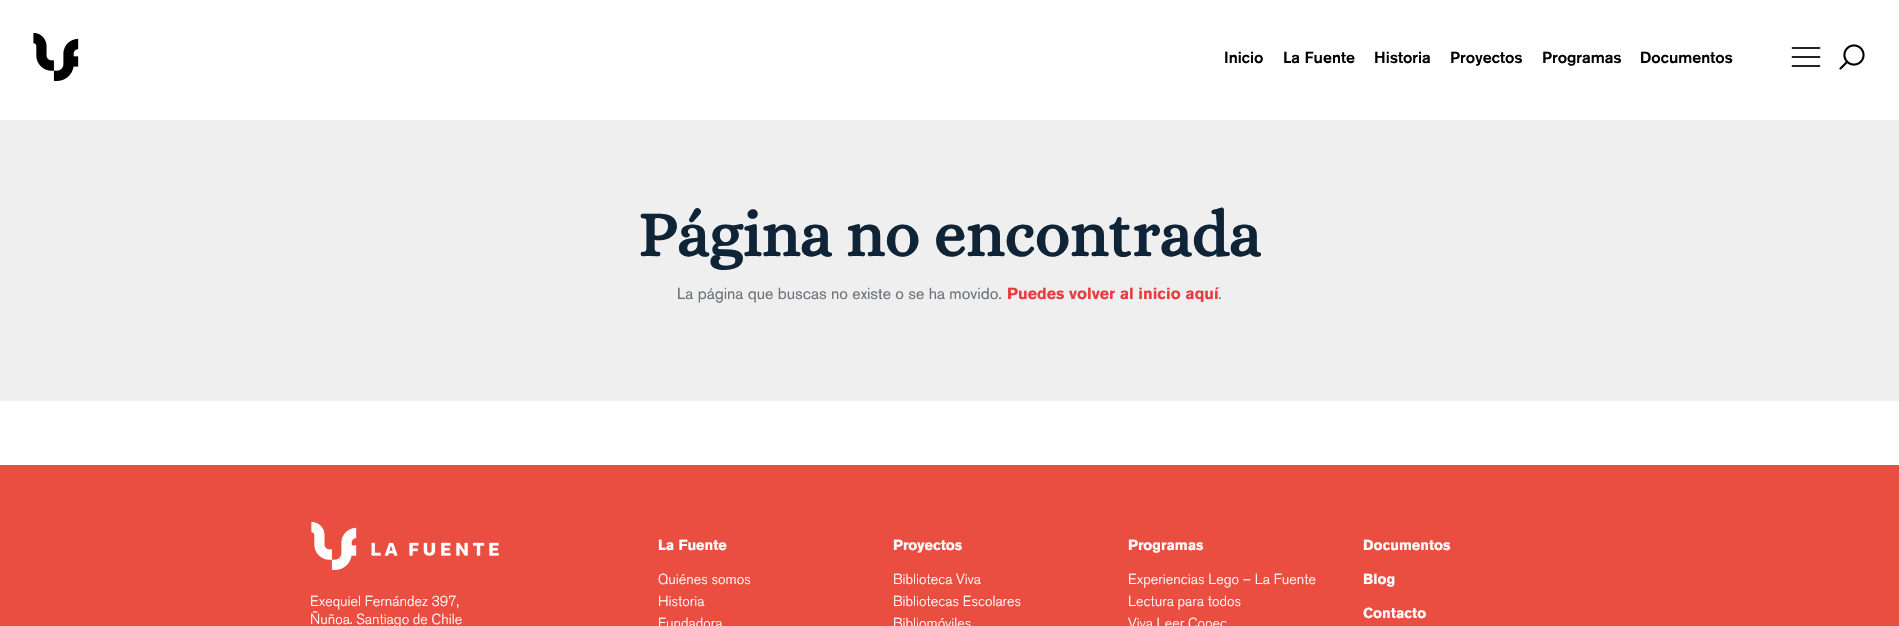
static SkFont makeFont(const char* family, int weight, float size, bool italic = false) {
  SkFontStyle style(weight, SkFontStyle::kNormal_Width,
    italic ? SkFontStyle::kItalic_Slant : SkFontStyle::kUpright_Slant);
  SkFont result(fontMgr->matchFamilyStyle(family, style), size);
  result.setSubpixel(true);
  return result;
}

static void text(SkCanvas* c, const char* s, float x, float y, const SkFont& font, SkColor color) {
  SkPaint ink(SkColor4f::FromColor(color));
  ink.setAntiAlias(true);
  c->drawString(s, x, y, font, ink);
}

static void box(SkCanvas* c, float l, float t, float r, float b, SkColor color) {
  SkPaint ink(SkColor4f::FromColor(color));
  ink.setAntiAlias(true);
  c->drawRect(SkRect::MakeLTRB(l, t, r, b), ink);
}

static void picture(SkCanvas* c, const char* path, float l, float t, float r, float b) {
  auto image = SkImages::DeferredFromEncodedData(SkData::MakeFromFileName(path));
  c->drawImageRect(image, SkRect::MakeLTRB(l, t, r, b), SkSamplingOptions());
}

void draw(SkCanvas* c) {
  SkPaint paint;
  paint.setAntiAlias(true);
  c->clear(0xffffffff);
  picture(c, "img_01.png", 33, 32, 79, 81);
  SkFont face1 = makeFont("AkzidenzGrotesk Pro", 500, 16);
  text(c, "Inicio", 1224, 63, face1, 0xff000000);
  text(c, "La Fuente", 1283, 63, face1, 0xff000000);
  text(c, "Historia", 1374, 63, face1, 0xff000000);
  text(c, "Proyectos", 1450, 63, face1, 0xff000000);
  text(c, "Programas", 1542, 63, face1, 0xff000000);
  text(c, "Documentos", 1640, 63, face1, 0xff000000);
  picture(c, "img_02.png", 1791, 47, 1821, 67);
  picture(c, "img_03.png", 1839, 44, 1865, 70);
  box(c, 0, 120, 1899, 401, 0xffefefef);
  SkFont face2 = makeFont("Alice", 700, 64);
  text(c, "Página no encontrada", 638, 256, face2, 0xff102438);
  SkFont face3 = makeFont("AkzidenzGrotesk Pro", 400, 16);
  text(c, "La página que buscas no existe o se ha movido.", 677, 299, face3, 0xff6d7278);
  SkFont face4 = makeFont("AkzidenzGrotesk Pro", 700, 16);
  text(c, "Puedes volver al inicio aquí", 1007, 299, face4, 0xffe83d40);
  text(c, ".", 1218, 299, face3, 0xff6d7278);
  box(c, 0, 465, 1899, 626, 0xffea4e41);
  picture(c, "img_04.png", 311, 521, 499, 570);
  SkFont face5 = makeFont("AkzidenzGrotesk Pro", 300, 14.4f);
  text(c, "Exequiel Fernández 397,", 310, 606, face5, 0xffffffff);
  text(c, "Ñuñoa. Santiago de Chile", 310, 624, face5, 0xffffffff);
  SkFont face6 = makeFont("AkzidenzGrotesk Pro", 700, 14.4f);
  text(c, "La Fuente", 658, 550, face6, 0xffffffff);
  text(c, "Quiénes somos", 658, 584, face5, 0xffffffff);
  text(c, "Historia", 658, 606, face5, 0xffffffff);
  text(c, "Fundadora", 658, 628, face5, 0xffffffff);
  text(c, "Proyectos", 893, 550, face6, 0xffffffff);
  text(c, "Biblioteca Viva", 893, 584, face5, 0xffffffff);
  text(c, "Bibliotecas Escolares", 893, 606, face5, 0xffffffff);
  text(c, "Bibliomóviles", 893, 628, face5, 0xffffffff);
  text(c, "Programas", 1128, 550, face6, 0xffffffff);
  text(c, "Experiencias Lego – La Fuente", 1128, 584, face5, 0xffffffff);
  text(c, "Lectura para todos", 1128, 606, face5, 0xffffffff);
  text(c, "Viva Leer Copec", 1128, 628, face5, 0xffffffff);
  text(c, "Documentos", 1363, 550, face6, 0xffffffff);
  text(c, "Blog", 1363, 584, face6, 0xffffffff);
  text(c, "Contacto", 1363, 618, face6, 0xffffffff);
}
